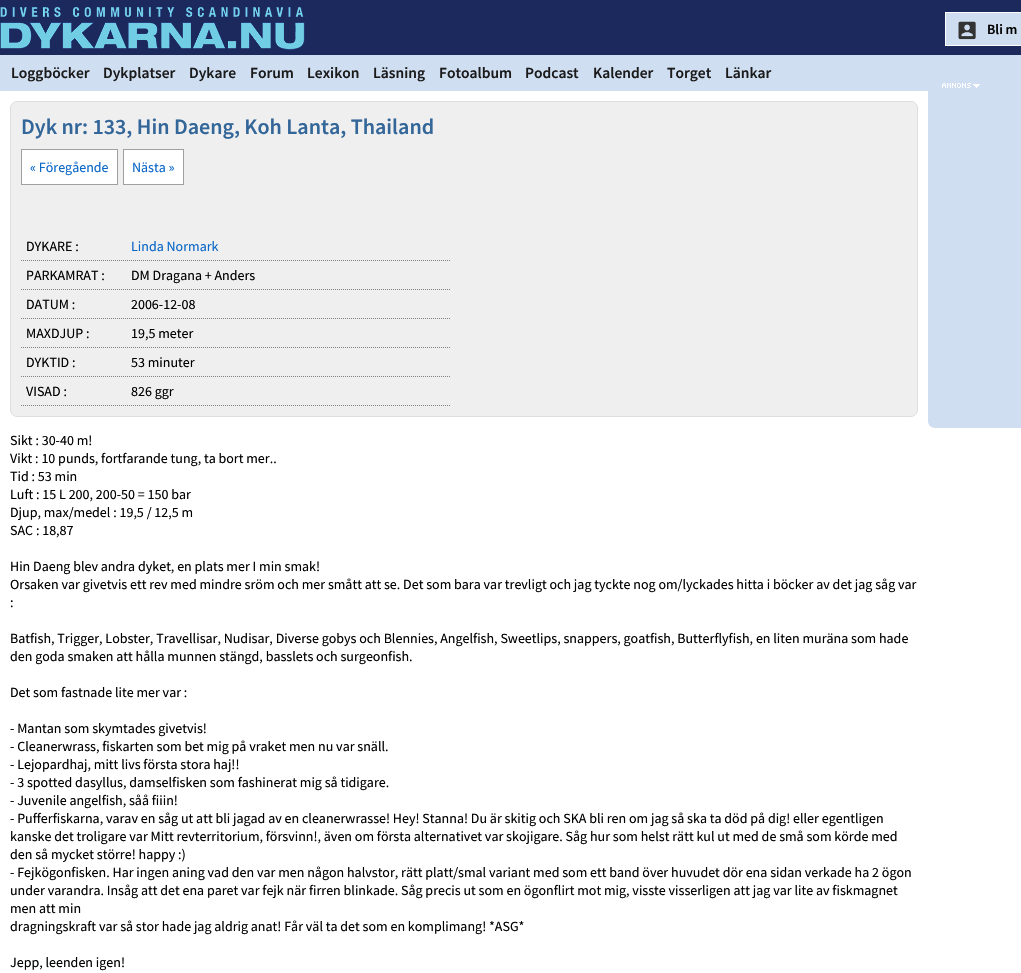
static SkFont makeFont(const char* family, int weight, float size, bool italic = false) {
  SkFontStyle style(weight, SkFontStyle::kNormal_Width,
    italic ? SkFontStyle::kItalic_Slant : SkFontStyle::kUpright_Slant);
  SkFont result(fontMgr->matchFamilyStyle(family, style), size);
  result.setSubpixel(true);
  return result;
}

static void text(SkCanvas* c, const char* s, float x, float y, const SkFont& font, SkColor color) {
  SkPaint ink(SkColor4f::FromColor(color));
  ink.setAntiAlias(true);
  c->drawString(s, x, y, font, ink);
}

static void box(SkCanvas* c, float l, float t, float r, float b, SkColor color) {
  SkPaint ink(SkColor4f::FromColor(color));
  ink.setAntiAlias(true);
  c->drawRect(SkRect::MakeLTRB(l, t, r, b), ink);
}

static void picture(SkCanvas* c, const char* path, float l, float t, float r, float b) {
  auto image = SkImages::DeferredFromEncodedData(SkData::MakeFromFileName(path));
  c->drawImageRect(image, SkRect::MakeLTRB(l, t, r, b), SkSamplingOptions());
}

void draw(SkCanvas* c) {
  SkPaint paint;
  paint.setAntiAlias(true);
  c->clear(0xff1b295d);
  picture(c, "img_01.png", 0, 7, 305, 50);
  box(c, 946, 13, 1021, 45, 0xffcfddf0);
  picture(c, "img_02.png", 958, 21, 976, 40);
  paint.setStyle(SkPaint::kStroke_Style);
  paint.setStrokeWidth(1);
  paint.setColor(0xffffffff);
  c->drawRect(SkRect::MakeLTRB(945.5f, 12.5f, 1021.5f, 45.5f), paint);
  SkFont face1 = makeFont("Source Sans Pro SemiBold", 600, 14);
  text(c, "Bli m", 987, 34, face1, 0xff000000);
  box(c, 0, 55, 1021, 91, 0xffcfdef0);
  SkFont face2 = makeFont("Source Sans Pro SemiBold", 600, 15.5f);
  text(c, "Loggböcker", 11, 78, face2, 0xff1b1b1c);
  text(c, "Dykplatser", 103, 78, face2, 0xff1b1b1c);
  text(c, "Dykare", 189, 78, face2, 0xff1b1b1c);
  text(c, "Forum", 250, 78, face2, 0xff1b1b1c);
  text(c, "Lexikon", 307, 78, face2, 0xff1b1b1c);
  text(c, "Läsning", 373, 78, face2, 0xff1b1b1c);
  text(c, "Fotoalbum", 439, 78, face2, 0xff1b1b1c);
  text(c, "Podcast", 525, 78, face2, 0xff1b1b1c);
  text(c, "Kalender", 593, 78, face2, 0xff1b1b1c);
  text(c, "Torget", 667, 78, face2, 0xff1b1b1c);
  text(c, "Länkar", 725, 78, face2, 0xff1b1b1c);
  box(c, 0, 91, 1021, 973, 0xffffffff);
  paint.setStyle(SkPaint::kFill_Style);
  paint.setColor(0xffefefef);
  c->drawRoundRect(SkRect::MakeLTRB(10.5f, 101.5f, 917.5f, 416.5f), 6.5f, 6.5f, paint);
  paint.setStyle(SkPaint::kStroke_Style);
  paint.setColor(0xffdedede);
  c->drawRoundRect(SkRect::MakeLTRB(10.5f, 101.5f, 917.5f, 416.5f), 6.5f, 6.5f, paint);
  SkFont face3 = makeFont("Source Sans Pro SemiBold", 600, 22);
  text(c, "Dyk nr: 133, Hin Daeng, Koh Lanta, Thailand", 21, 134, face3, 0xff336699);
  paint.setStyle(SkPaint::kFill_Style);
  paint.setColor(0xffffffff);
  c->drawRect(SkRect::MakeLTRB(21.5f, 149.5f, 117.5f, 184.5f), paint);
  paint.setStyle(SkPaint::kStroke_Style);
  paint.setColor(0xffa0a0a0);
  c->drawRect(SkRect::MakeLTRB(21.5f, 149.5f, 117.5f, 184.5f), paint);
  SkFont face4 = makeFont("Source Sans Pro", 400, 14);
  text(c, "« Föregående", 30, 172, face4, 0xff0a67c7);
  paint.setStyle(SkPaint::kFill_Style);
  paint.setColor(0xffffffff);
  c->drawRect(SkRect::MakeLTRB(123.5f, 149.5f, 183.5f, 184.5f), paint);
  paint.setStyle(SkPaint::kStroke_Style);
  paint.setColor(0xffa0a0a0);
  c->drawRect(SkRect::MakeLTRB(123.5f, 149.5f, 183.5f, 184.5f), paint);
  text(c, "Nästa »", 132, 172, face4, 0xff0a67c7);
  text(c, "DYKARE :", 26, 251, face4, 0xff000000);
  paint.setColor(0xff808080);
  paint.setPathEffect(SkDashPathEffect::Make({{1, 1}}, 0));
  c->drawPath(SkPathBuilder().moveTo(21, 260.5f).lineTo(451, 260.5f).detach(), paint);
  paint.setPathEffect(nullptr);
  text(c, "Linda Normark", 131, 251, face4, 0xff0a67c7);
  text(c, "PARKAMRAT :", 26, 280, face4, 0xff000000);
  paint.setPathEffect(SkDashPathEffect::Make({{1, 1}}, 0));
  c->drawPath(SkPathBuilder().moveTo(21, 289.5f).lineTo(451, 289.5f).detach(), paint);
  paint.setPathEffect(nullptr);
  text(c, "DM Dragana + Anders", 131, 280, face4, 0xff000000);
  text(c, "DATUM :", 26, 309, face4, 0xff000000);
  paint.setPathEffect(SkDashPathEffect::Make({{1, 1}}, 0));
  c->drawPath(SkPathBuilder().moveTo(21, 318.5f).lineTo(451, 318.5f).detach(), paint);
  paint.setPathEffect(nullptr);
  text(c, "2006-12-08", 131, 309, face4, 0xff000000);
  text(c, "MAXDJUP :", 26, 338, face4, 0xff000000);
  paint.setPathEffect(SkDashPathEffect::Make({{1, 1}}, 0));
  c->drawPath(SkPathBuilder().moveTo(21, 347.5f).lineTo(451, 347.5f).detach(), paint);
  paint.setPathEffect(nullptr);
  text(c, "19,5 meter", 131, 338, face4, 0xff000000);
  text(c, "DYKTID :", 26, 367, face4, 0xff000000);
  paint.setPathEffect(SkDashPathEffect::Make({{1, 1}}, 0));
  c->drawPath(SkPathBuilder().moveTo(21, 376.5f).lineTo(451, 376.5f).detach(), paint);
  paint.setPathEffect(nullptr);
  text(c, "53 minuter", 131, 367, face4, 0xff000000);
  text(c, "VISAD :", 26, 396, face4, 0xff000000);
  paint.setPathEffect(SkDashPathEffect::Make({{1, 1}}, 0));
  c->drawPath(SkPathBuilder().moveTo(21, 405.5f).lineTo(451, 405.5f).detach(), paint);
  paint.setPathEffect(nullptr);
  text(c, "826 ggr", 131, 396, face4, 0xff000000);
  text(c, "Sikt : 30-40 m!", 10, 445, face4, 0xff000000);
  text(c, "Vikt : 10 punds, fortfarande tung, ta bort mer..", 10, 463, face4, 0xff000000);
  text(c, "Tid : 53 min", 10, 481, face4, 0xff000000);
  text(c, "Luft : 15 L 200, 200-50 = 150 bar", 10, 499, face4, 0xff000000);
  text(c, "Djup, max/medel : 19,5 / 12,5 m", 10, 517, face4, 0xff000000);
  text(c, "SAC : 18,87", 10, 535, face4, 0xff000000);
  text(c, "Hin Daeng blev andra dyket, en plats mer I min smak!", 10, 571, face4, 0xff000000);
  text(c, "Orsaken var givetvis ett rev med mindre sröm och mer smått att se. Det som bara var trevligt och jag tyckte nog om/lyckades hitta i böcker av det jag såg var", 10, 589, face4, 0xff000000);
  text(c, ":", 10, 607, face4, 0xff000000);
  text(c, "Batfish, Trigger, Lobster, Travellisar, Nudisar, Diverse gobys och Blennies, Angelfish, Sweetlips, snappers, goatfish, Butterflyfish, en liten muräna som hade", 10, 643, face4, 0xff000000);
  text(c, "den goda smaken att hålla munnen stängd, basslets och surgeonfish.", 10, 661, face4, 0xff000000);
  text(c, "Det som fastnade lite mer var :", 10, 697, face4, 0xff000000);
  text(c, "- Mantan som skymtades givetvis!", 10, 733, face4, 0xff000000);
  text(c, "- Cleanerwrass, fiskarten som bet mig på vraket men nu var snäll.", 10, 751, face4, 0xff000000);
  text(c, "- Lejopardhaj, mitt livs första stora haj!!", 10, 769, face4, 0xff000000);
  text(c, "- 3 spotted dasyllus, damselfisken som fashinerat mig så tidigare.", 10, 787, face4, 0xff000000);
  text(c, "- Juvenile angelfish, såå fiiin!", 10, 805, face4, 0xff000000);
  text(c, "- Pufferfiskarna, varav en såg ut att bli jagad av en cleanerwrasse! Hey! Stanna! Du är skitig och SKA bli ren om jag så ska ta död på dig! eller egentligen", 10, 823, face4, 0xff000000);
  text(c, "kanske det troligare var Mitt revterritorium, försvinn!, även om första alternativet var skojigare. Såg hur som helst rätt kul ut med de små som körde med", 10, 841, face4, 0xff000000);
  text(c, "den så mycket större! happy :)", 10, 859, face4, 0xff000000);
  text(c, "- Fejkögonfisken. Har ingen aning vad den var men någon halvstor, rätt platt/smal variant med som ett band över huvudet dör ena sidan verkade ha 2 ögon", 10, 877, face4, 0xff000000);
  text(c, "under varandra. Insåg att det ena paret var fejk när firren blinkade. Såg precis ut som en ögonflirt mot mig, visste visserligen att jag var lite av fiskmagnet", 10, 895, face4, 0xff000000);
  text(c, "men att min", 10, 913, face4, 0xff000000);
  text(c, "dragningskraft var så stor hade jag aldrig anat! Får väl ta det som en komplimang! *ASG*", 10, 931, face4, 0xff000000);
  text(c, "Jepp, leenden igen!", 10, 967, face4, 0xff000000);
  paint.setStyle(SkPaint::kFill_Style);
  paint.setColor(0xffcfdef0);
  c->drawPath(SkPathBuilder().moveTo(928, 83).lineTo(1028, 83).lineTo(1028, 428).lineTo(935, 428).cubicTo(931, 428, 928, 425, 928, 421).close().detach(), paint);
  picture(c, "img_03.png", 942, 83, 980, 88);
}
